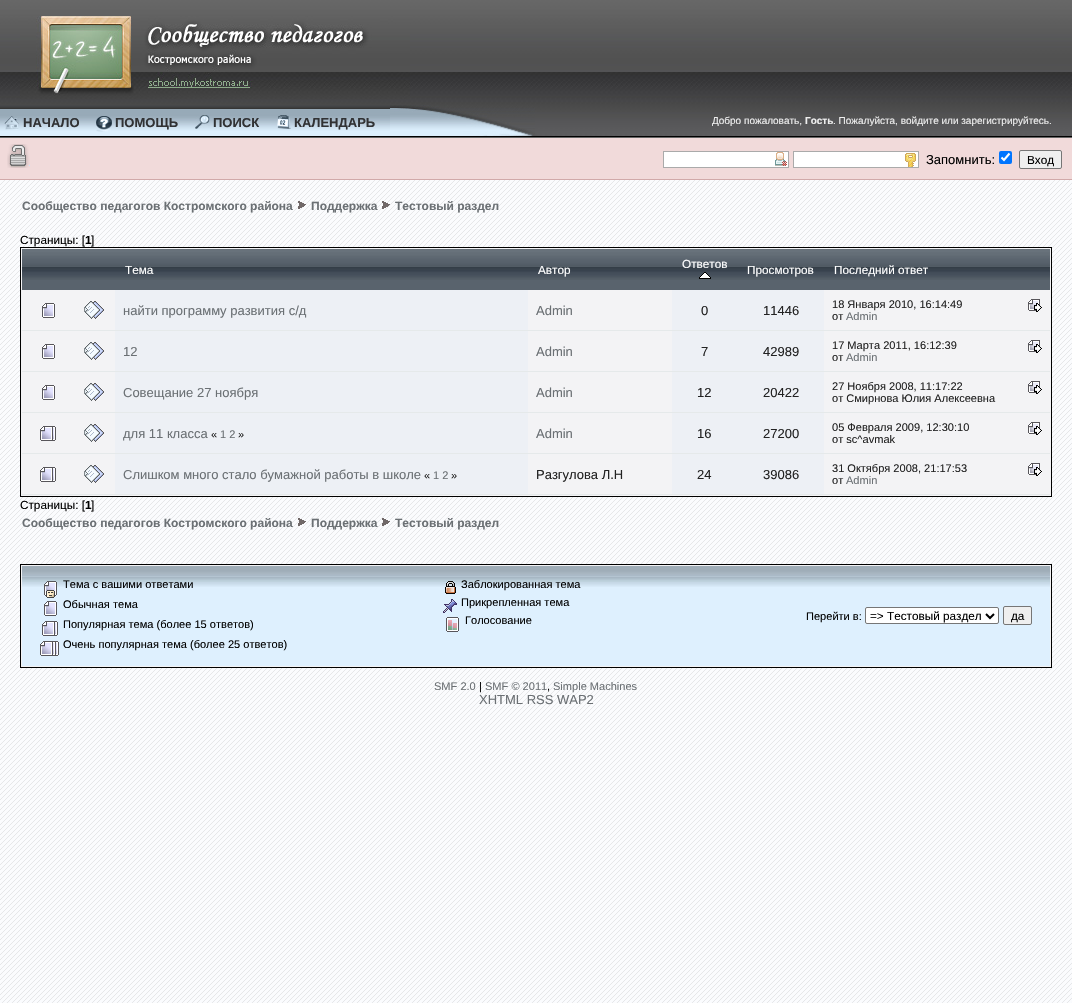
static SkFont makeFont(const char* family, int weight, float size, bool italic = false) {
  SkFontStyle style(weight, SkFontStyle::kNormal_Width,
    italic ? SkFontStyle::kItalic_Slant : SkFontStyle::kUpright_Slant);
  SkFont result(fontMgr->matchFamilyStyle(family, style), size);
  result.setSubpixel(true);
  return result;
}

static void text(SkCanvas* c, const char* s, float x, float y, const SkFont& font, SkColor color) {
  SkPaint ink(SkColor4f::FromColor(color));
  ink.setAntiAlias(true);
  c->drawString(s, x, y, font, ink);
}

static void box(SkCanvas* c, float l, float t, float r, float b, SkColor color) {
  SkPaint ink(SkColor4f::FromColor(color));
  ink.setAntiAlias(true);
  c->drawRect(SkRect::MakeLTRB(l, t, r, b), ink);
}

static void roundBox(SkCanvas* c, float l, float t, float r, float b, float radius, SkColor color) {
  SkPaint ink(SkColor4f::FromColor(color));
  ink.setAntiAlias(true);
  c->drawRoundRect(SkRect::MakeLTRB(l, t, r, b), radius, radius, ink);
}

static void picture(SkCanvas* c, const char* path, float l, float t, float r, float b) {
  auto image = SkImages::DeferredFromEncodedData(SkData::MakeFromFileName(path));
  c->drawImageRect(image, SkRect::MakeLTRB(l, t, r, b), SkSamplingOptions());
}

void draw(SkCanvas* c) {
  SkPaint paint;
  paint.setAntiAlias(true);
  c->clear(0xffffffff);
  picture(c, "img_01.png", 0, 180, 1072, 1003);
  picture(c, "img_02.png", 0, 0, 1072, 104);
  picture(c, "img_03.png", 20, 16, 410, 99);
  picture(c, "img_04.png", 0, 104, 1072, 136);
  box(c, 0, 136, 1072, 137, 0xff000000);
  picture(c, "img_05.png", 0, 105, 390, 136);
  picture(c, "img_06.png", 4, 116, 19, 130);
  SkFont face1 = makeFont("Liberation Sans", 700, 13);
  text(c, "НАЧАЛО", 23, 127, face1, 0xff313234);
  picture(c, "img_07.png", 96, 116, 112, 132);
  text(c, "ПОМОЩЬ", 115, 127, face1, 0xff313234);
  picture(c, "img_08.png", 195, 115, 210, 129);
  text(c, "ПОИСК", 213, 127, face1, 0xff313234);
  picture(c, "img_09.png", 277, 115, 291, 129);
  text(c, "КАЛЕНДАРЬ", 294, 127, face1, 0xff313234);
  picture(c, "img_10.png", 390, 105, 535, 136);
  SkFont face2 = makeFont("Liberation Sans", 400, 10);
  text(c, "Добро пожаловать,", 712, 124, face2, 0xffeeeeee);
  SkFont face3 = makeFont("Liberation Sans", 700, 10);
  text(c, "Гость", 805, 124, face3, 0xffeeeeee);
  text(c, ". Пожалуйста, войдите или зарегистрируйтесь.", 833, 124, face2, 0xffeeeeee);
  box(c, 0, 137, 1072, 138, 0xff666666);
  box(c, 0, 138, 1072, 179, 0xfff1dada);
  picture(c, "img_11.png", 7, 144, 30, 168);
  box(c, 0, 179, 1072, 180, 0xffd1a9a9);
  box(c, 664, 152, 788, 167, 0xffffffff);
  picture(c, "img_12.png", 775, 152, 787, 166);
  paint.setStyle(SkPaint::kStroke_Style);
  paint.setStrokeWidth(1);
  paint.setColor(0xffaaaaaa);
  c->drawRect(SkRect::MakeLTRB(663.5f, 151.5f, 788.5f, 167.5f), paint);
  box(c, 794, 152, 918, 167, 0xffffffff);
  picture(c, "img_13.png", 905, 153, 916, 167);
  c->drawRect(SkRect::MakeLTRB(793.5f, 151.5f, 918.5f, 167.5f), paint);
  SkFont face4 = makeFont("Liberation Sans", 400, 13);
  text(c, "Запомнить:", 926, 164, face4, 0xff000000);
  roundBox(c, 999, 151, 1012, 164, 2, 0xff0075ff);
  paint.setStrokeWidth(2.1f);
  paint.setColor(0xffffffff);
  c->drawPath(SkPathBuilder().moveTo(1001.5f, 157.5f).lineTo(1004, 160).lineTo(1009.5f, 153.5f).detach(), paint);
  paint.setStyle(SkPaint::kFill_Style);
  paint.setColor(0xffefefef);
  c->drawRoundRect(SkRect::MakeLTRB(1019.5f, 150.5f, 1061.5f, 168.5f), 1.5f, 1.5f, paint);
  paint.setStyle(SkPaint::kStroke_Style);
  paint.setStrokeWidth(1);
  paint.setColor(0xff767676);
  c->drawRoundRect(SkRect::MakeLTRB(1019.5f, 150.5f, 1061.5f, 168.5f), 1.5f, 1.5f, paint);
  SkFont face5 = makeFont("Liberation Sans", 400, 11.75f);
  text(c, "Вход", 1027, 164, face5, 0xff000000);
  SkFont face6 = makeFont("Liberation Sans", 700, 12);
  text(c, "Сообщество педагогов Костромского района", 22, 210, face6, 0xff6b7074);
  picture(c, "img_14.png", 298, 201, 306, 209);
  text(c, "Поддержка", 311, 210, face6, 0xff6b7074);
  picture(c, "img_15.png", 382, 201, 390, 209);
  text(c, "Тестовый раздел", 395, 210, face6, 0xff6b7074);
  text(c, "Страницы: [", 20, 244, face5, 0xff000000);
  SkFont face7 = makeFont("Liberation Sans", 700, 11.75f);
  text(c, "1", 85, 244, face7, 0xff000000);
  text(c, "]", 91, 244, face5, 0xff000000);
  paint.setStyle(SkPaint::kFill_Style);
  paint.setColor(0xfff3f3f5);
  c->drawRect(SkRect::MakeLTRB(20.5f, 247.5f, 1051.5f, 496.5f), paint);
  paint.setStyle(SkPaint::kStroke_Style);
  paint.setColor(0xff000000);
  c->drawRect(SkRect::MakeLTRB(20.5f, 247.5f, 1051.5f, 496.5f), paint);
  box(c, 22, 280, 1050, 290, 0xff59636d);
  picture(c, "img_16.png", 22, 249, 115, 280);
  picture(c, "img_17.png", 672, 249, 737, 280);
  text(c, "Ответов", 682, 268, face5, 0xffffffff);
  picture(c, "img_18.png", 699, 272, 711, 279);
  picture(c, "img_19.png", 115, 249, 528, 280);
  text(c, "Тема", 125, 274, face5, 0xffffffff);
  picture(c, "img_20.png", 528, 249, 672, 280);
  text(c, "Автор", 538, 274, face5, 0xffffffff);
  picture(c, "img_21.png", 737, 249, 824, 280);
  text(c, "Просмотров", 747, 274, face5, 0xffffffff);
  picture(c, "img_22.png", 824, 249, 1050, 280);
  text(c, "Последний ответ", 834, 274, face5, 0xffffffff);
  picture(c, "img_23.png", 84, 301, 104, 319);
  SkFont face8 = makeFont("Liberation Sans", 400, 11.05f);
  text(c, "18 Января 2010, 16:14:49", 832, 308, face8, 0xff222222);
  picture(c, "img_24.png", 1028, 299, 1042, 312);
  text(c, "от", 832, 320, face8, 0xff222222);
  text(c, "Admin", 846, 320, face8, 0xff6b7074);
  box(c, 22, 330, 1050, 331, 0xffe5e9ea);
  picture(c, "img_25.png", 42, 303, 55, 318);
  box(c, 115, 290, 528, 330, 0xffedf0f5);
  text(c, "найти программу развития с/д", 123, 315, face4, 0xff6b7074);
  text(c, "Admin", 536, 315, face4, 0xff6b7074);
  box(c, 672, 290, 824, 330, 0xffedf0f5);
  text(c, "0", 701, 315, face4, 0xff222222);
  text(c, "11446", 763, 315, face4, 0xff222222);
  picture(c, "img_23.png", 84, 342, 104, 360);
  text(c, "17 Марта 2011, 16:12:39", 832, 349, face8, 0xff222222);
  picture(c, "img_24.png", 1028, 340, 1042, 353);
  text(c, "от", 832, 361, face8, 0xff222222);
  text(c, "Admin", 846, 361, face8, 0xff6b7074);
  box(c, 22, 371, 1050, 372, 0xffe5e9ea);
  picture(c, "img_25.png", 42, 344, 55, 359);
  box(c, 115, 331, 528, 371, 0xffedf0f5);
  text(c, "12", 123, 356, face4, 0xff6b7074);
  text(c, "Admin", 536, 356, face4, 0xff6b7074);
  box(c, 672, 331, 824, 371, 0xffedf0f5);
  text(c, "7", 701, 356, face4, 0xff222222);
  text(c, "42989", 763, 356, face4, 0xff222222);
  picture(c, "img_23.png", 84, 383, 104, 401);
  text(c, "27 Ноября 2008, 11:17:22", 832, 390, face8, 0xff222222);
  picture(c, "img_24.png", 1028, 381, 1042, 394);
  text(c, "от Смирнова Юлия Алексеевна", 832, 402, face8, 0xff222222);
  box(c, 22, 412, 1050, 413, 0xffe5e9ea);
  picture(c, "img_25.png", 42, 385, 55, 400);
  box(c, 115, 372, 528, 412, 0xffedf0f5);
  text(c, "Совещание 27 ноября", 123, 397, face4, 0xff6b7074);
  text(c, "Admin", 536, 397, face4, 0xff6b7074);
  box(c, 672, 372, 824, 412, 0xffedf0f5);
  text(c, "12", 697, 397, face4, 0xff222222);
  text(c, "20422", 763, 397, face4, 0xff222222);
  picture(c, "img_23.png", 84, 424, 104, 442);
  text(c, "05 Февраля 2009, 12:30:10", 832, 431, face8, 0xff222222);
  picture(c, "img_24.png", 1028, 422, 1042, 435);
  text(c, "от sc^avmak", 832, 443, face8, 0xff222222);
  box(c, 22, 453, 1050, 454, 0xffe5e9ea);
  picture(c, "img_26.png", 40, 426, 56, 441);
  box(c, 115, 413, 528, 453, 0xffedf0f5);
  text(c, "для 11 класса", 123, 438, face4, 0xff6b7074);
  SkFont face9 = makeFont("Liberation Sans", 400, 11);
  text(c, "«", 211, 438, face9, 0xff222222);
  text(c, "1 2", 220, 438, face9, 0xff6b7074);
  text(c, "»", 238, 438, face9, 0xff222222);
  text(c, "Admin", 536, 438, face4, 0xff6b7074);
  box(c, 672, 413, 824, 453, 0xffedf0f5);
  text(c, "16", 697, 438, face4, 0xff222222);
  text(c, "27200", 763, 438, face4, 0xff222222);
  picture(c, "img_23.png", 84, 465, 104, 483);
  text(c, "31 Октября 2008, 21:17:53", 832, 472, face8, 0xff222222);
  picture(c, "img_24.png", 1028, 463, 1042, 476);
  text(c, "от", 832, 484, face8, 0xff222222);
  text(c, "Admin", 846, 484, face8, 0xff6b7074);
  box(c, 22, 494, 1050, 495, 0xffe5e9ea);
  picture(c, "img_26.png", 40, 467, 56, 482);
  box(c, 115, 454, 528, 494, 0xffedf0f5);
  text(c, "Слишком много стало бумажной работы в школе", 123, 479, face4, 0xff6b7074);
  text(c, "«", 424, 479, face9, 0xff222222);
  text(c, "1 2", 433, 479, face9, 0xff6b7074);
  text(c, "»", 451, 479, face9, 0xff222222);
  text(c, "Разгулова Л.Н", 536, 479, face4, 0xff222222);
  box(c, 672, 454, 824, 494, 0xffedf0f5);
  text(c, "24", 697, 479, face4, 0xff222222);
  text(c, "39086", 763, 479, face4, 0xff222222);
  text(c, "Страницы: [", 20, 509, face5, 0xff000000);
  text(c, "1", 85, 509, face7, 0xff000000);
  text(c, "]", 91, 509, face5, 0xff000000);
  text(c, "Сообщество педагогов Костромского района", 22, 527, face6, 0xff6b7074);
  picture(c, "img_27.png", 298, 518, 306, 526);
  text(c, "Поддержка", 311, 527, face6, 0xff6b7074);
  picture(c, "img_28.png", 382, 518, 390, 526);
  text(c, "Тестовый раздел", 395, 527, face6, 0xff6b7074);
  paint.setStyle(SkPaint::kFill_Style);
  paint.setColor(0xfff3f3f5);
  c->drawRect(SkRect::MakeLTRB(20.5f, 564.5f, 1051.5f, 667.5f), paint);
  paint.setStyle(SkPaint::kStroke_Style);
  paint.setColor(0xff000000);
  c->drawRect(SkRect::MakeLTRB(20.5f, 564.5f, 1051.5f, 667.5f), paint);
  box(c, 22, 587, 1050, 666, 0xffdef0fe);
  picture(c, "img_29.png", 22, 566, 1050, 587);
  picture(c, "img_30.png", 44, 581, 57, 598);
  text(c, "Тема с вашими ответами", 63, 588, face8, 0xff000000);
  picture(c, "img_31.png", 44, 601, 57, 616);
  text(c, "Обычная тема", 63, 608, face8, 0xff000000);
  picture(c, "img_32.png", 42, 621, 58, 636);
  text(c, "Популярная тема (более 15 ответов)", 63, 628, face8, 0xff000000);
  picture(c, "img_33.png", 40, 641, 59, 656);
  text(c, "Очень популярная тема (более 25 ответов)", 63, 648, face8, 0xff000000);
  picture(c, "img_34.png", 445, 581, 456, 594);
  text(c, "Заблокированная тема", 461, 588, face8, 0xff000000);
  picture(c, "img_35.png", 443, 599, 457, 613);
  text(c, "Прикрепленная тема", 461, 606, face8, 0xff000000);
  picture(c, "img_36.png", 446, 617, 459, 632);
  text(c, "Голосование", 465, 624, face8, 0xff000000);
  text(c, "Перейти в:", 806, 620, face8, 0xff000000);
  paint.setStyle(SkPaint::kFill_Style);
  paint.setColor(0xffffffff);
  c->drawRoundRect(SkRect::MakeLTRB(865.5f, 607.5f, 998.5f, 623.5f), 1.5f, 1.5f, paint);
  paint.setStyle(SkPaint::kStroke_Style);
  paint.setColor(0xff767676);
  c->drawRoundRect(SkRect::MakeLTRB(865.5f, 607.5f, 998.5f, 623.5f), 1.5f, 1.5f, paint);
  paint.setStrokeWidth(2);
  paint.setColor(0xff000000);
  c->drawPath(SkPathBuilder().moveTo(986, 614).lineTo(990, 618).lineTo(994, 614).detach(), paint);
  text(c, "=> Тестовый раздел", 870, 620, face5, 0xff000000);
  paint.setStyle(SkPaint::kFill_Style);
  paint.setColor(0xffefefef);
  c->drawRoundRect(SkRect::MakeLTRB(1003.5f, 606.5f, 1031.5f, 624.5f), 1.5f, 1.5f, paint);
  paint.setStyle(SkPaint::kStroke_Style);
  paint.setStrokeWidth(1);
  paint.setColor(0xff767676);
  c->drawRoundRect(SkRect::MakeLTRB(1003.5f, 606.5f, 1031.5f, 624.5f), 1.5f, 1.5f, paint);
  text(c, "да", 1011, 620, face5, 0xff000000);
  text(c, "SMF 2.0", 434, 690, face8, 0xff6b7074);
  text(c, "|", 479, 690, face8, 0xff000000);
  text(c, "SMF © 2011", 485, 690, face8, 0xff6b7074);
  text(c, ",", 547, 690, face8, 0xff000000);
  text(c, "Simple Machines", 553, 690, face8, 0xff6b7074);
  text(c, "XHTML RSS WAP2", 479, 704, face4, 0xff6b7074);
}
